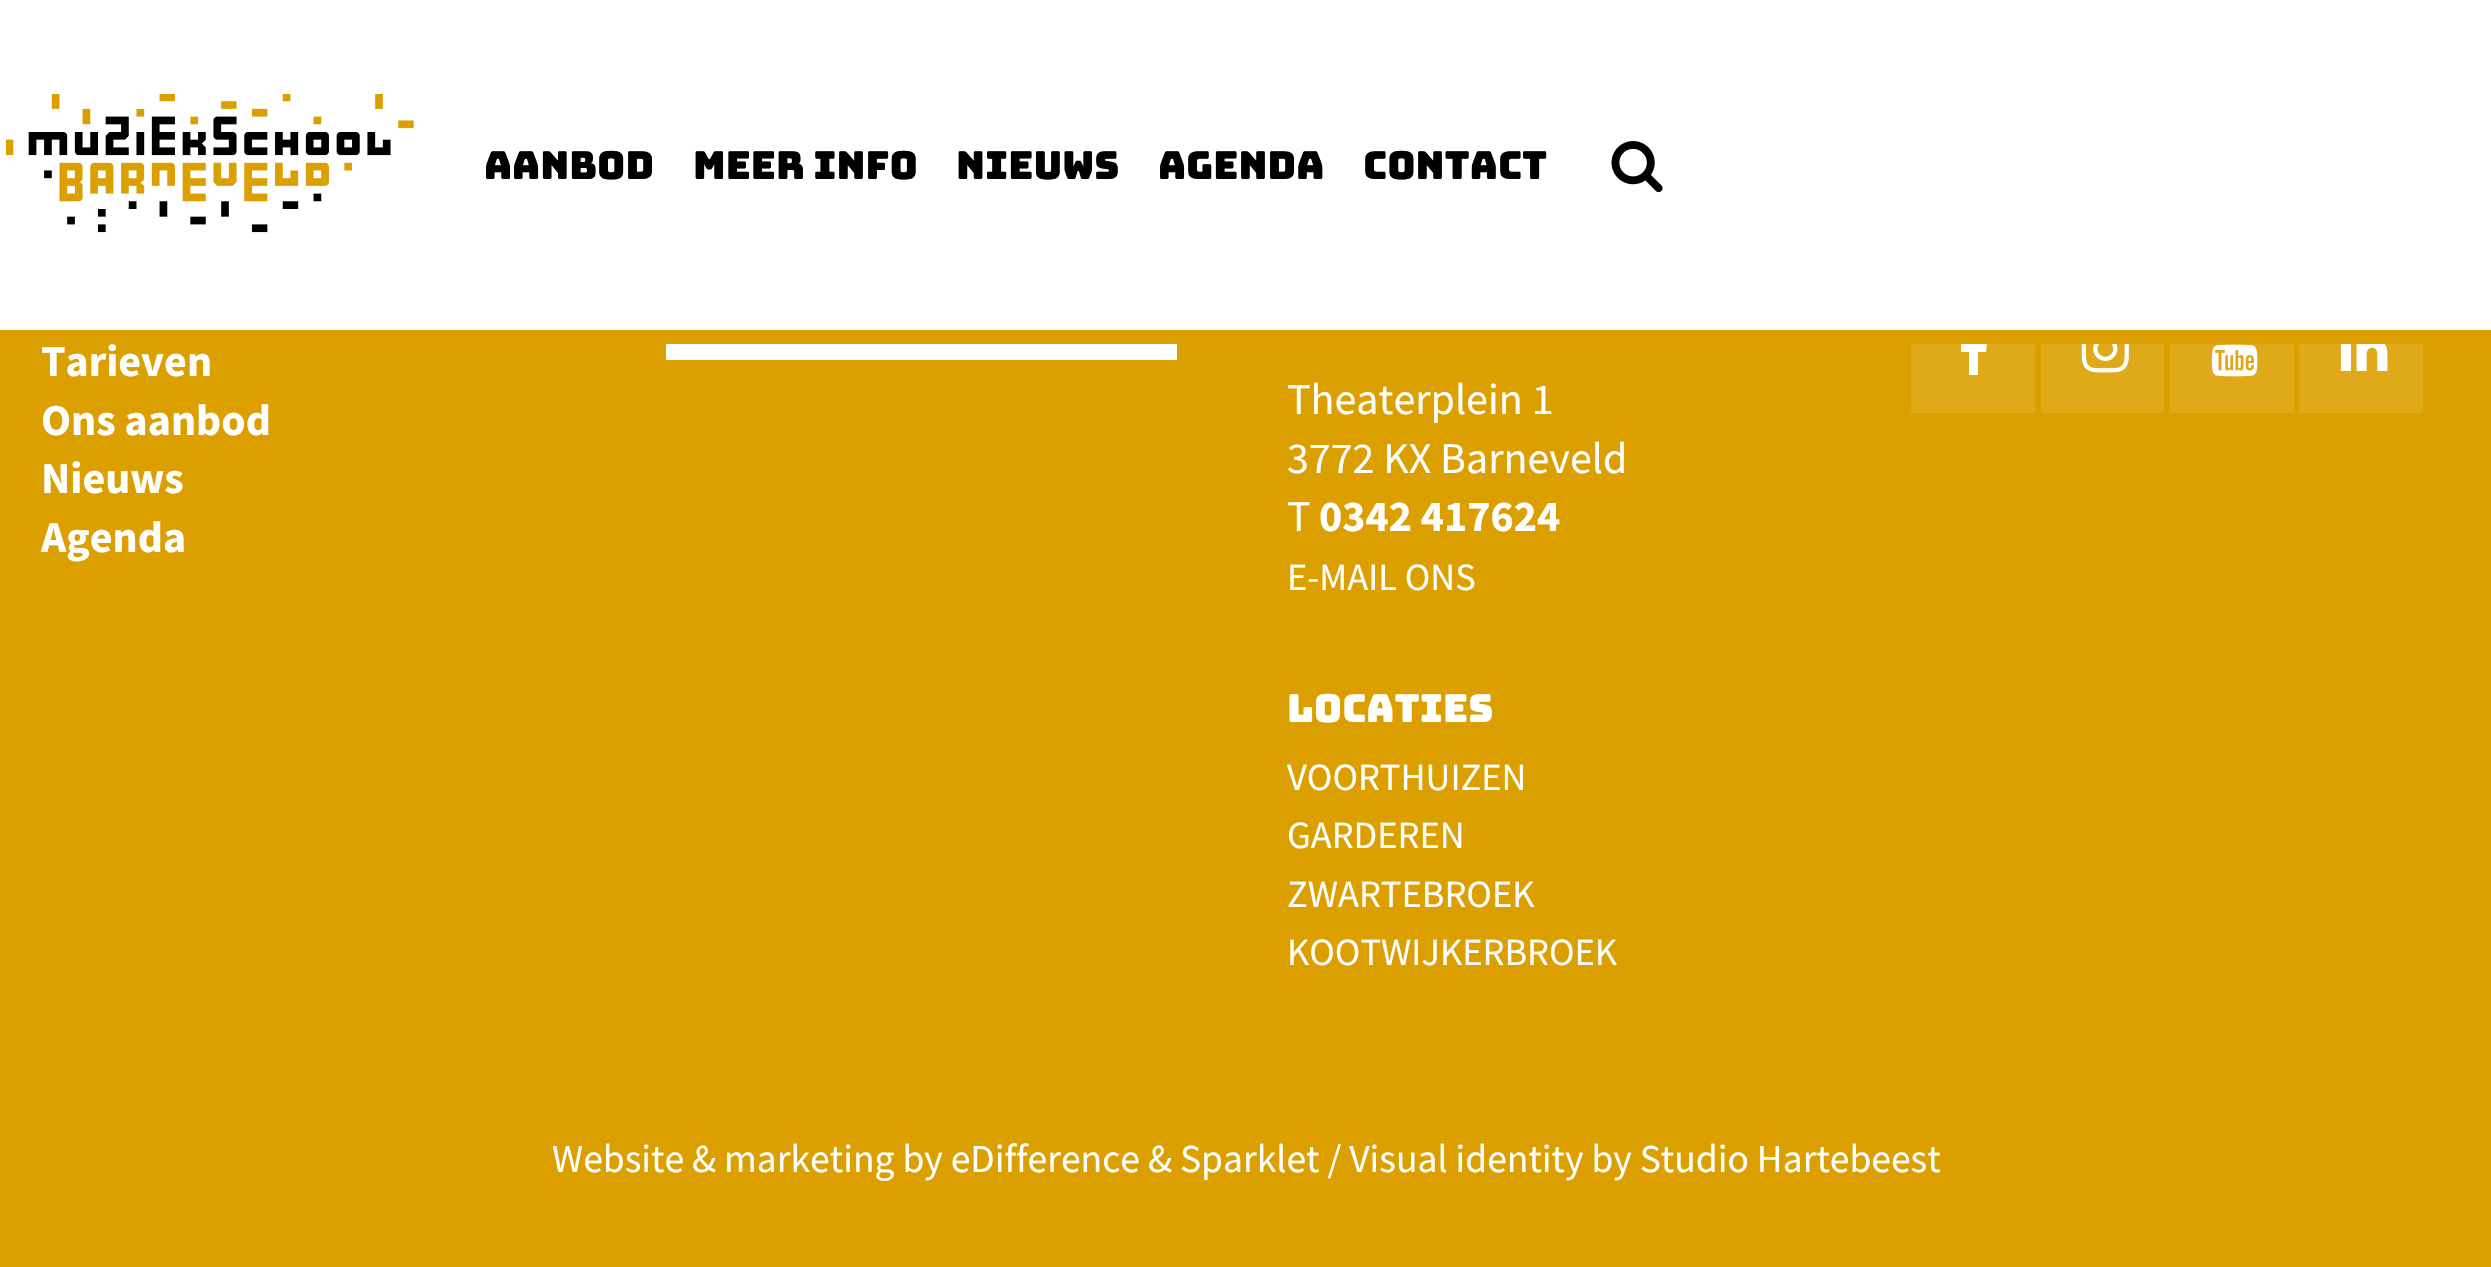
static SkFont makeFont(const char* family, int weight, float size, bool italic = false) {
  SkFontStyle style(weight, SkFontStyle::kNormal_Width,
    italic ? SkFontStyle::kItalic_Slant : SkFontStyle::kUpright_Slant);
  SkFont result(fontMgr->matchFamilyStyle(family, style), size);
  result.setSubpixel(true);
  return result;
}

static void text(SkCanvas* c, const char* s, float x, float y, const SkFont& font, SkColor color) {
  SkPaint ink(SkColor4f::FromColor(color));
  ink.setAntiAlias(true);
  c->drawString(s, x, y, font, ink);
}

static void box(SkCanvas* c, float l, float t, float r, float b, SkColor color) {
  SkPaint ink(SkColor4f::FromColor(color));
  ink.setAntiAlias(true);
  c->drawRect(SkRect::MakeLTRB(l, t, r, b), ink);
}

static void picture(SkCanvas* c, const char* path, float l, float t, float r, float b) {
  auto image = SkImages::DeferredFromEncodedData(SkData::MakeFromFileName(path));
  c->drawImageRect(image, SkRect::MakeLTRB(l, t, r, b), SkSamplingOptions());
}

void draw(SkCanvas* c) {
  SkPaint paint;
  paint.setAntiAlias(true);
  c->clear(0xffdc9f00);
  box(c, 1911, 344, 2035, 413, 0xffe0a91a);
  paint.setColor(0xffffffff);
  c->drawPath(SkPathBuilder().moveTo(1987, 324).lineTo(1987, 333).cubicTo(1977, 333, 1978, 333, 1978, 343).lineTo(1987, 343).lineTo(1986, 352).lineTo(1978, 352).lineTo(1978, 375).lineTo(1969, 375).lineTo(1969, 352).lineTo(1961, 352).lineTo(1961, 343).lineTo(1969, 343).lineTo(1969, 333).cubicTo(1970, 324, 1980, 323, 1987, 324).close().detach(), paint);
  box(c, 0, 0, 2491, 330, 0xffffffff);
  box(c, 1961, 330, 1987, 344, 0xffdc9f00);
  picture(c, "img_01.png", 6, 94, 414, 233);
  SkFont face1 = makeFont("Bungee", 400, 38.5f);
  text(c, "AANBOD", 484, 179, face1, 0xff000000);
  text(c, "MEER INFO", 693, 179, face1, 0xff000000);
  text(c, "NIEUWS", 956, 179, face1, 0xff000000);
  text(c, "AGENDA", 1158, 179, face1, 0xff000000);
  text(c, "CONTACT", 1363, 179, face1, 0xff000000);
  picture(c, "img_02.png", 1611, 141, 1663, 193);
  SkFont face2 = makeFont("Source Sans Pro", 700, 44);
  text(c, "Tarieven", 41, 376, face2, 0xffffffff);
  text(c, "Ons aanbod", 41, 435, face2, 0xffffffff);
  text(c, "Nieuws", 41, 493, face2, 0xffffffff);
  text(c, "Agenda", 41, 552, face2, 0xffffffff);
  box(c, 666, 344, 1177, 360, 0xffffffff);
  box(c, 2041, 344, 2164, 413, 0xffe0a91a);
  picture(c, "img_03.png", 2081, 344, 2129, 373);
  box(c, 2170, 344, 2294, 413, 0xffe0a91a);
  picture(c, "img_04.png", 2211, 344, 2258, 377);
  box(c, 2299, 344, 2423, 413, 0xffe0a91a);
  picture(c, "img_05.png", 2340, 344, 2388, 371);
  SkFont face3 = makeFont("Source Sans Pro", 400, 44);
  text(c, "Theaterplein 1", 1287, 414, face3, 0xffffffff);
  text(c, "3772 KX Barneveld", 1287, 473, face3, 0xffffffff);
  text(c, "T", 1287, 531, face3, 0xffffffff);
  text(c, "0342 417624", 1319, 531, face2, 0xffffffff);
  SkFont face4 = makeFont("Source Sans Pro", 400, 38.5f);
  text(c, "E-MAIL ONS", 1287, 590, face4, 0xffffffff);
  text(c, "LOCATIES", 1287, 722, face1, 0xffffffff);
  text(c, "VOORTHUIZEN", 1287, 790, face4, 0xffffffff);
  text(c, "GARDEREN", 1287, 848, face4, 0xffffffff);
  text(c, "ZWARTEBROEK", 1287, 907, face4, 0xffffffff);
  text(c, "KOOTWIJKERBROEK", 1287, 965, face4, 0xffffffff);
  SkFont face5 = makeFont("Source Sans Pro", 400, 39.6f);
  text(c, "Website & marketing by eDifference & Sparklet / Visual identity by Studio Hartebeest", 552, 1172, face5, 0xffffffff);
}
